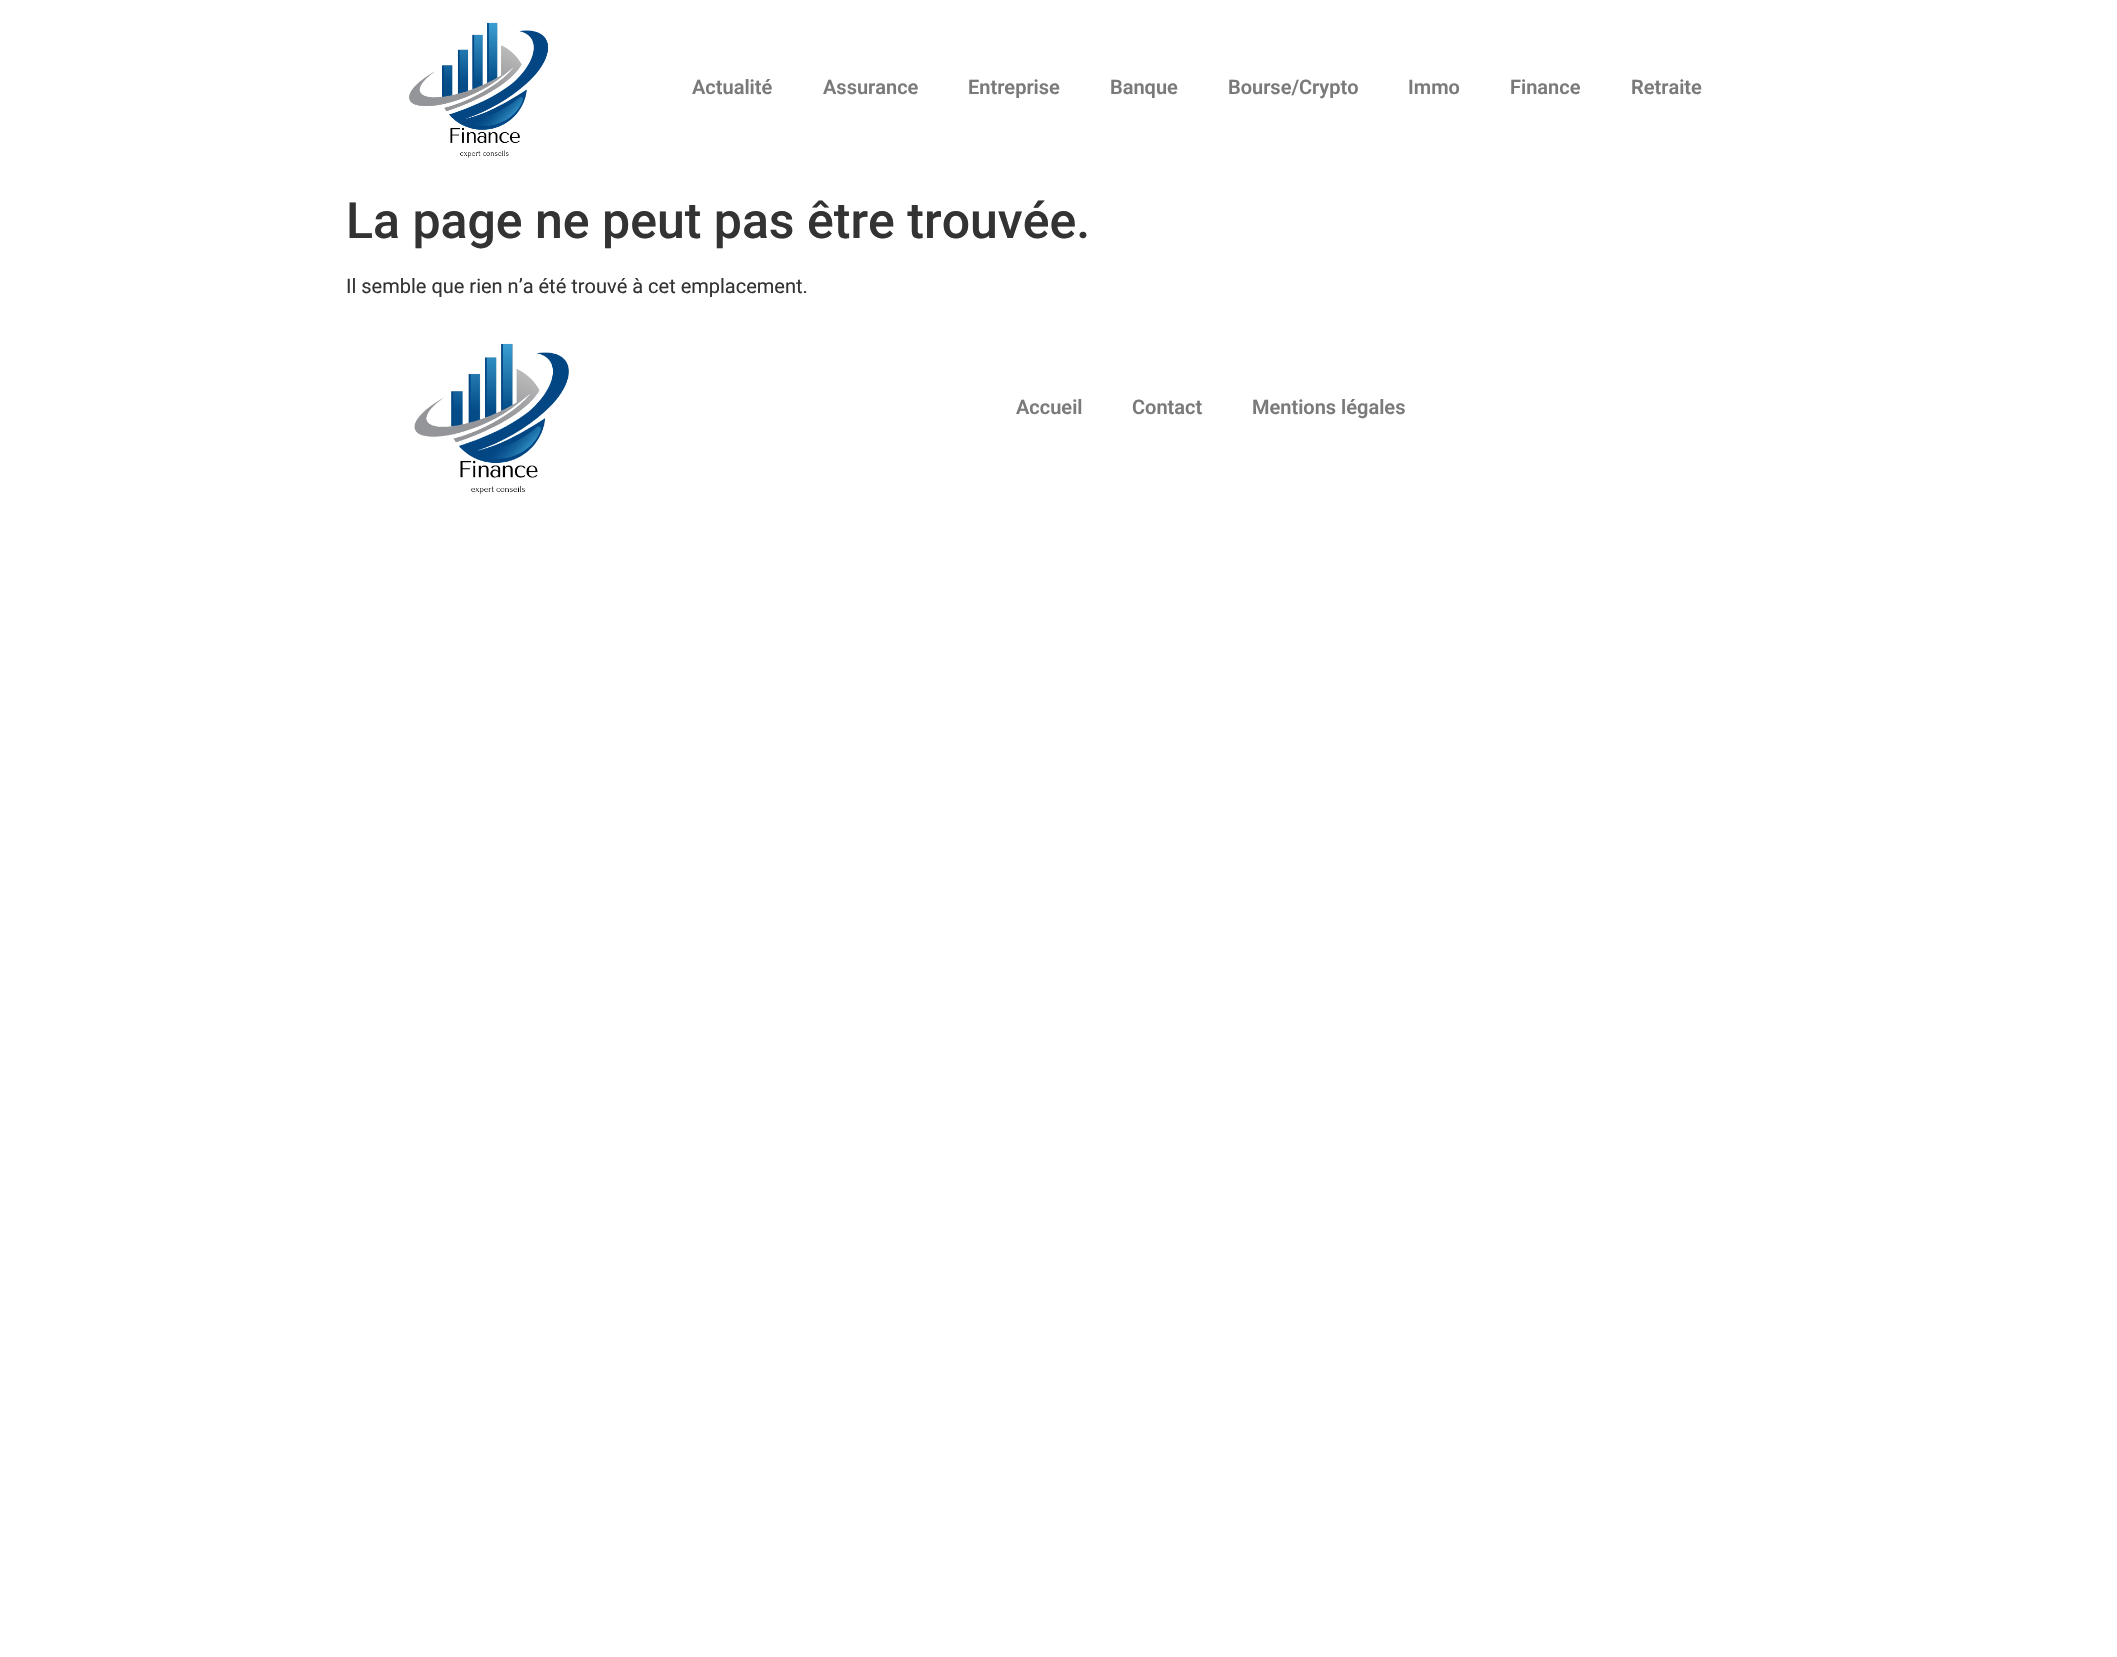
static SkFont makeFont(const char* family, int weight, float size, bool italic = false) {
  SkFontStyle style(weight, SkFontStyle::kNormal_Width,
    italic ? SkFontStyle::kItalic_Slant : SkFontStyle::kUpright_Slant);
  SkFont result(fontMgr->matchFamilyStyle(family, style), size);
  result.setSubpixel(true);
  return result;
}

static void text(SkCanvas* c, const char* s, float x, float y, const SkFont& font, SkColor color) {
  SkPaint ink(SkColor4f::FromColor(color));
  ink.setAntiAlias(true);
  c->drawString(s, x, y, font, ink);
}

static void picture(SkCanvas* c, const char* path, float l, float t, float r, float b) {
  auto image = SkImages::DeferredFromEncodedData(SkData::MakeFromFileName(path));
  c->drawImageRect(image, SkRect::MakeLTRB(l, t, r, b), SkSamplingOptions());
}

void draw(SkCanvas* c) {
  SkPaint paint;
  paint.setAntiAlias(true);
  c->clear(0xffffffff);
  picture(c, "img_01.png", 409, 22, 548, 158);
  SkFont face1 = makeFont("Roboto", 600, 20);
  text(c, "Actualité", 692, 94, face1, 0xff7a7a7a);
  text(c, "Assurance", 823, 94, face1, 0xff7a7a7a);
  text(c, "Entreprise", 968, 94, face1, 0xff7a7a7a);
  text(c, "Banque", 1110, 94, face1, 0xff7a7a7a);
  text(c, "Bourse/Crypto", 1228, 94, face1, 0xff7a7a7a);
  text(c, "Immo", 1408, 94, face1, 0xff7a7a7a);
  text(c, "Finance", 1510, 94, face1, 0xff7a7a7a);
  text(c, "Retraite", 1631, 94, face1, 0xff7a7a7a);
  SkFont face2 = makeFont("Roboto", 500, 50);
  text(c, "La page ne peut pas être trouvée.", 346, 238, face2, 0xff333333);
  SkFont face3 = makeFont("Roboto", 400, 20);
  text(c, "Il semble que rien n’a été trouvé à cet emplacement.", 346, 293, face3, 0xff333333);
  picture(c, "img_02.png", 414, 343, 569, 494);
  text(c, "Accueil", 1016, 414, face1, 0xff7a7a7a);
  text(c, "Contact", 1132, 414, face1, 0xff7a7a7a);
  text(c, "Mentions légales", 1252, 414, face1, 0xff7a7a7a);
}
